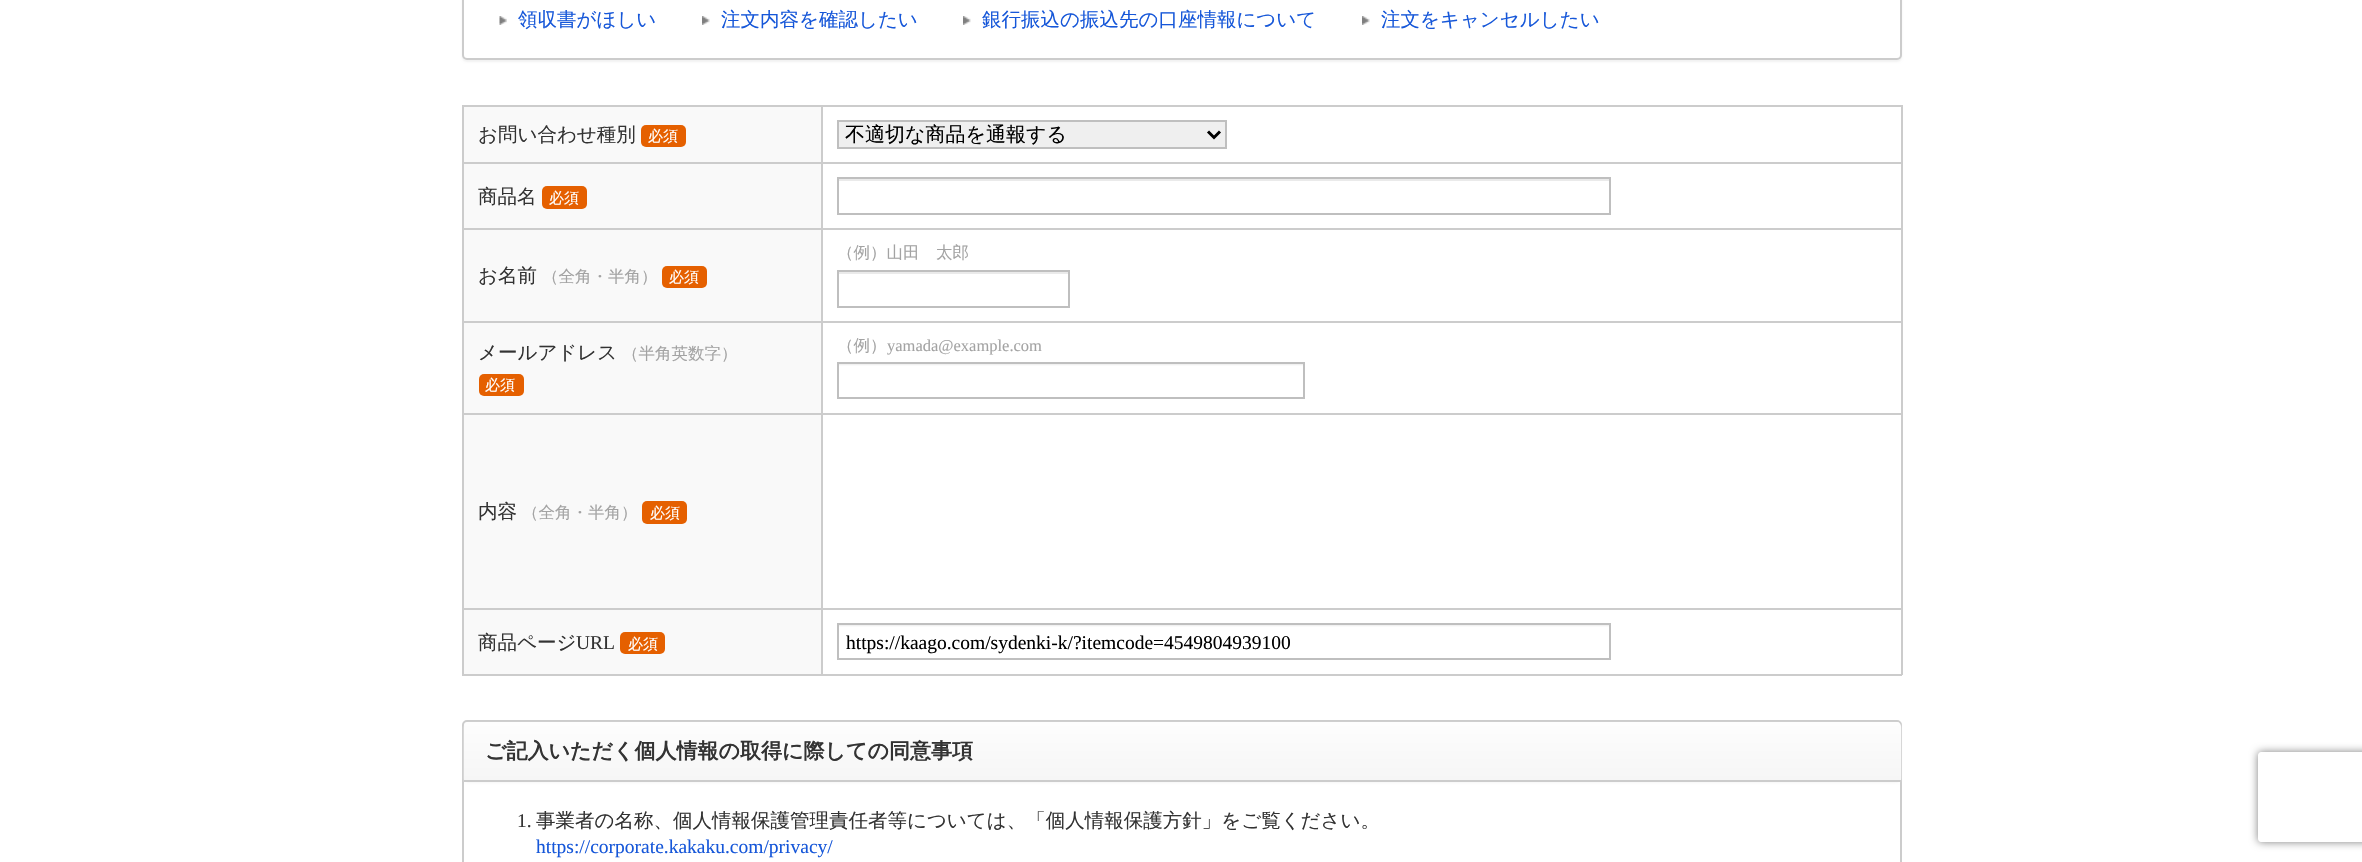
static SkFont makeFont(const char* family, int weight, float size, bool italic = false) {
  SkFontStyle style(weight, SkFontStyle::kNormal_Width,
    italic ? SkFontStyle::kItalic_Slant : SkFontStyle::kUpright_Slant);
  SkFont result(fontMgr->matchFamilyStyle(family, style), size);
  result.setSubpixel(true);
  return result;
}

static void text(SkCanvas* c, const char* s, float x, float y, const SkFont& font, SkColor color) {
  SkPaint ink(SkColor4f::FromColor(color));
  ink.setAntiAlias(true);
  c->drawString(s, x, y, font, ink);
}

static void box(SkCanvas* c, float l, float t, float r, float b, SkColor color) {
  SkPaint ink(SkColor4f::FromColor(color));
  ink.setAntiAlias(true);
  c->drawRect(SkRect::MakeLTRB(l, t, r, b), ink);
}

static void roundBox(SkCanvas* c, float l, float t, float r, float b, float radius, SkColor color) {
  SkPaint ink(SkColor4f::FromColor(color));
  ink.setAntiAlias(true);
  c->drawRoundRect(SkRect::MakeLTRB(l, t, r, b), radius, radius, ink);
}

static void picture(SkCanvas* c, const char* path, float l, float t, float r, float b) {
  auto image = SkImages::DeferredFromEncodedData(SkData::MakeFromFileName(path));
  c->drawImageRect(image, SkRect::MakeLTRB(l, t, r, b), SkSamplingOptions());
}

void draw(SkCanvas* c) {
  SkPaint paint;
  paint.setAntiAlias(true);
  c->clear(0xffffffff);
  paint.setColor(0xfff2f2f2);
  paint.setMaskFilter(SkMaskFilter::MakeBlur(kNormal_SkBlurStyle, 1));
  c->drawRoundRect(SkRect::MakeLTRB(462, -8, 1902, 62), 5, 5, paint);
  paint.setMaskFilter(nullptr);
  paint.setColor(0xffffffff);
  c->drawRoundRect(SkRect::MakeLTRB(463, -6, 1901, 59), 4, 4, paint);
  paint.setStyle(SkPaint::kStroke_Style);
  paint.setStrokeWidth(2);
  paint.setColor(0xffcccccc);
  c->drawRoundRect(SkRect::MakeLTRB(463, -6, 1901, 59), 4, 4, paint);
  picture(c, "img_01.png", 499, 16, 507, 25);
  SkFont face1 = makeFont("WenQuanYi Zen Hei", 500, 19.5f);
  text(c, "領収書がほしい", 518, 26, face1, 0xff1657d9);
  picture(c, "img_02.png", 702, 16, 710, 25);
  text(c, "注文内容を確認したい", 721, 26, face1, 0xff1657d9);
  picture(c, "img_03.png", 963, 16, 971, 25);
  text(c, "銀行振込の振込先の口座情報について", 982, 26, face1, 0xff1657d9);
  picture(c, "img_02.png", 1362, 16, 1370, 25);
  text(c, "注文をキャンセルしたい", 1381, 26, face1, 0xff1657d9);
  box(c, 464, 107, 821, 162, 0xfff9f9f9);
  box(c, 821, 105, 1902, 107, 0xffcccccc);
  box(c, 821, 162, 1902, 164, 0xffcccccc);
  box(c, 821, 228, 1902, 230, 0xffcccccc);
  box(c, 821, 321, 1902, 323, 0xffcccccc);
  box(c, 821, 413, 1902, 415, 0xffcccccc);
  box(c, 821, 608, 1902, 610, 0xffcccccc);
  box(c, 1901, 608, 1903, 675, 0xffcccccc);
  box(c, 821, 674, 1902, 676, 0xffcccccc);
  box(c, 821, 608, 823, 675, 0xffcccccc);
  box(c, 462, 608, 822, 610, 0xffcccccc);
  box(c, 821, 413, 823, 609, 0xffcccccc);
  box(c, 462, 413, 822, 415, 0xffcccccc);
  box(c, 821, 321, 823, 414, 0xffcccccc);
  box(c, 462, 321, 822, 323, 0xffcccccc);
  box(c, 821, 228, 823, 323, 0xffcccccc);
  box(c, 462, 228, 822, 230, 0xffcccccc);
  box(c, 821, 162, 823, 230, 0xffcccccc);
  box(c, 462, 162, 822, 164, 0xffcccccc);
  box(c, 821, 105, 823, 164, 0xffcccccc);
  box(c, 462, 105, 822, 107, 0xffcccccc);
  box(c, 462, 674, 822, 676, 0xffcccccc);
  box(c, 462, 608, 464, 675, 0xffcccccc);
  box(c, 462, 413, 464, 609, 0xffcccccc);
  box(c, 462, 321, 464, 414, 0xffcccccc);
  box(c, 462, 228, 464, 323, 0xffcccccc);
  box(c, 462, 162, 464, 230, 0xffcccccc);
  box(c, 462, 105, 464, 164, 0xffcccccc);
  text(c, "お問い合わせ種別", 478, 141, face1, 0xff333333);
  roundBox(c, 641, 125, 686, 147, 5, 0xffe56000);
  SkFont face2 = makeFont("WenQuanYi Zen Hei", 500, 15);
  text(c, "必須", 648, 141, face2, 0xffffffff);
  box(c, 1901, 413, 1903, 609, 0xffcccccc);
  box(c, 1901, 321, 1903, 414, 0xffcccccc);
  box(c, 1901, 228, 1903, 323, 0xffcccccc);
  box(c, 1901, 162, 1903, 230, 0xffcccccc);
  box(c, 1901, 105, 1903, 164, 0xffcccccc);
  paint.setStyle(SkPaint::kFill_Style);
  paint.setColor(0xffefefef);
  c->drawRect(SkRect::MakeLTRB(838, 121, 1226, 148), paint);
  paint.setStyle(SkPaint::kStroke_Style);
  paint.setColor(0xffbfbfbf);
  c->drawRect(SkRect::MakeLTRB(838, 121, 1226, 148), paint);
  paint.setStrokeWidth(3);
  paint.setColor(0xff000000);
  c->drawPath(SkPathBuilder().moveTo(1208, 131.5f).lineTo(1214, 137.5f).lineTo(1220, 131.5f).detach(), paint);
  SkFont face3 = makeFont("WenQuanYi Zen Hei", 500, 20);
  text(c, "不適切な商品を通報する", 845, 141, face3, 0xff000000);
  box(c, 464, 164, 821, 228, 0xfff9f9f9);
  text(c, "商品名", 478, 203, face1, 0xff333333);
  roundBox(c, 542, 186, 587, 209, 5, 0xffe56000);
  text(c, "必須", 549, 203, face2, 0xffffffff);
  box(c, 837, 179, 1611, 181, 0xffeaeaea);
  paint.setStrokeWidth(2);
  paint.setColor(0xffbfbfbf);
  c->drawRect(SkRect::MakeLTRB(838, 178, 1610, 214), paint);
  SkFont face4 = makeFont("WenQuanYi Zen Hei", 500, 16.5f);
  text(c, "（例）山田　太郎", 837, 258, face4, 0xffa3a3a3);
  box(c, 837, 272, 1070, 274, 0xffeaeaea);
  c->drawRect(SkRect::MakeLTRB(838, 271, 1069, 307), paint);
  box(c, 464, 230, 821, 321, 0xfff9f9f9);
  text(c, "お名前", 478, 282, face1, 0xff333333);
  text(c, "（全角・半角）", 542, 282, face4, 0xffa3a3a3);
  roundBox(c, 662, 266, 707, 288, 5, 0xffe56000);
  text(c, "必須", 669, 282, face2, 0xffffffff);
  box(c, 464, 323, 821, 413, 0xfff9f9f9);
  text(c, "メールアドレス", 478, 359, face1, 0xff333333);
  text(c, "（半角英数字）", 622, 359, face4, 0xffa3a3a3);
  roundBox(c, 479, 374, 524, 396, 5, 0xffe56000);
  text(c, "必須", 485, 390, face2, 0xffffffff);
  text(c, "（例）", 837, 351, face4, 0xffa3a3a3);
  SkFont face5 = makeFont("Liberation Serif", 400, 16.5f);
  text(c, "yamada@example.com", 887, 351, face5, 0xffa3a3a3);
  picture(c, "img_04.png", 839, 364, 1303, 366);
  c->drawRect(SkRect::MakeLTRB(838, 363, 1304, 398), paint);
  box(c, 464, 415, 821, 608, 0xfff9f9f9);
  text(c, "内容", 478, 518, face1, 0xff333333);
  text(c, "（全角・半角）", 522, 518, face4, 0xffa3a3a3);
  roundBox(c, 642, 501, 687, 524, 5, 0xffe56000);
  text(c, "必須", 650, 518, face2, 0xffffffff);
  box(c, 464, 610, 821, 674, 0xfff9f9f9);
  text(c, "商品ページ", 478, 649, face1, 0xff333333);
  SkFont face6 = makeFont("Liberation Serif", 400, 19.5f);
  text(c, "URL", 576, 649, face6, 0xff333333);
  roundBox(c, 620, 632, 665, 654, 5, 0xffe56000);
  text(c, "必須", 628, 649, face2, 0xffffffff);
  picture(c, "img_05.png", 839, 625, 1609, 627);
  c->drawRect(SkRect::MakeLTRB(838, 624, 1610, 659), paint);
  text(c, "https://kaago.com/sydenki-k/?itemcode=4549804939100", 846, 649, face6, 0xff000000);
  paint.setColor(0xffcccccc);
  c->drawRoundRect(SkRect::MakeLTRB(463, 721, 1901, 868), 4, 4, paint);
  paint.setStyle(SkPaint::kFill_Style);
  paint.setColor(0xfff7f7f7);
  paint.setMaskFilter(SkMaskFilter::MakeBlur(kNormal_SkBlurStyle, 1));
  c->drawRoundRect(SkRect::MakeLTRB(464, 723, 1901, 783), 5, 5, paint);
  paint.setMaskFilter(nullptr);
  {
    const SkColor colors[] = {0xfffdfdfd, 0xfff6f6f6};
    const float stops[] = {0, 1};
    const SkPoint ends[] = {{464, 722}, {464, 780}};
    paint.setShader(SkGradientShader::MakeLinear(ends, colors, stops, 2, SkTileMode::kClamp));
    paint.setAlpha(255);
  }
  c->drawPath(SkPathBuilder().moveTo(469, 722).lineTo(1896, 722).cubicTo(1899, 722, 1901, 724, 1901, 727).lineTo(1901, 780).lineTo(464, 780).lineTo(464, 727).cubicTo(464, 724, 466, 722, 469, 722).close().detach(), paint);
  box(c, 464, 780, 1901, 782, 0xffcccccc);
  SkFont face7 = makeFont("WenQuanYi Zen Hei", 700, 21);
  text(c, "ご記入いただく個人情報の取得に際しての同意事項", 485, 758, face7, 0xff333333);
  text(c, "1.", 517, 827, face6, 0xff333333);
  text(c, "事業者の名称、個人情報保護管理責任者等については、「個人情報保護方針」をご覧ください。", 536, 827, face1, 0xff333333);
  text(c, "https://corporate.kakaku.com/privacy/", 536, 853, face6, 0xff1657d9);
  c->save();
  c->clipPath(SkPathBuilder(SkPathFillType::kEvenOdd).moveTo(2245, 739).lineTo(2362, 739).lineTo(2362, 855).lineTo(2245, 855).close().moveTo(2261, 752).lineTo(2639, 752).cubicTo(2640.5f, 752, 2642, 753.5f, 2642, 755).lineTo(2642, 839).cubicTo(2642, 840.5f, 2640.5f, 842, 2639, 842).lineTo(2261, 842).cubicTo(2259.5f, 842, 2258, 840.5f, 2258, 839).lineTo(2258, 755).cubicTo(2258, 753.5f, 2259.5f, 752, 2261, 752).close().detach(), true);
  paint.setShader(nullptr);
  paint.setColor(0xff808080);
  paint.setMaskFilter(SkMaskFilter::MakeBlur(kNormal_SkBlurStyle, 4));
  c->drawRoundRect(SkRect::MakeLTRB(2258, 752, 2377, 842), 3, 3, paint);
  paint.setMaskFilter(nullptr);
  c->restore();
}
